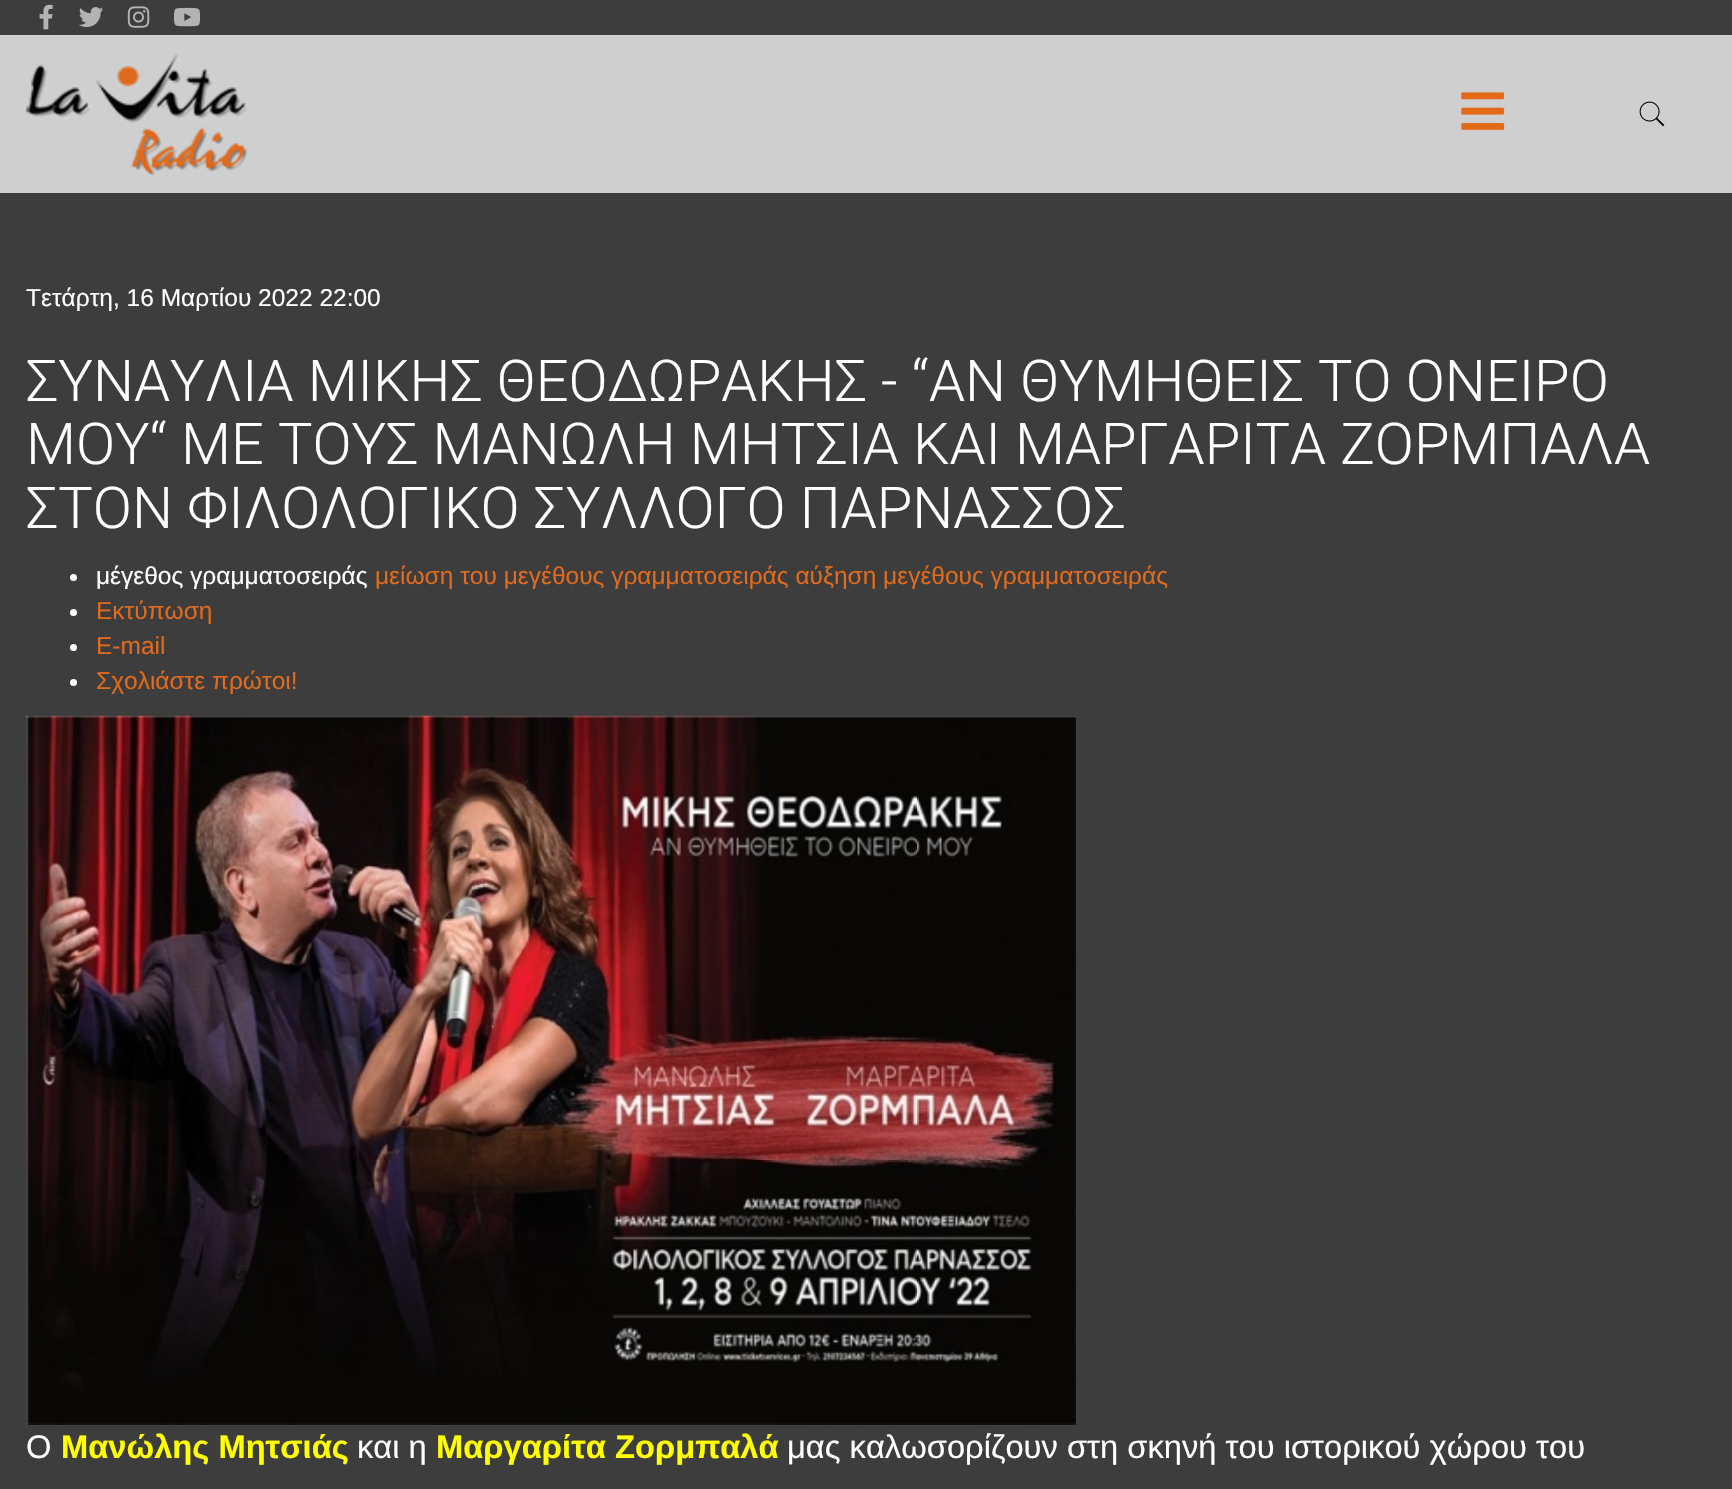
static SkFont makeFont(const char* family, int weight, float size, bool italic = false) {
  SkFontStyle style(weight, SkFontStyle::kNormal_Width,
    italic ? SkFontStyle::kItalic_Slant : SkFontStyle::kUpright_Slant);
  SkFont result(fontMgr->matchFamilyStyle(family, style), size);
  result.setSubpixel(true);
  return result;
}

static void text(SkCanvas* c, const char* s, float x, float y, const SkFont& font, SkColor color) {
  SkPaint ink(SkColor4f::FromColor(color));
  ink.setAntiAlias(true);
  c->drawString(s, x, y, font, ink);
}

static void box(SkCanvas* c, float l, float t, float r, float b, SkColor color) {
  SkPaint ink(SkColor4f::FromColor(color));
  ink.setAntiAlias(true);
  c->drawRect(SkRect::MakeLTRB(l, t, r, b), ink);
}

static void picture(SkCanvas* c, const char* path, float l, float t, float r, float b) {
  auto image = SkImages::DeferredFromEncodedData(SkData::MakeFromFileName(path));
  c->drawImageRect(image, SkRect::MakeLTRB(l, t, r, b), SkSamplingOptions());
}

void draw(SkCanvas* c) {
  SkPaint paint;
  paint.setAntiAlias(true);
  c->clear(0xff3d3d3d);
  picture(c, "img_01.png", 39, 4, 53, 30);
  picture(c, "img_02.png", 79, 7, 103, 27);
  picture(c, "img_03.png", 127, 6, 150, 28);
  picture(c, "img_04.png", 174, 7, 201, 27);
  box(c, 0, 35, 1732, 193, 0xffcfcfcf);
  picture(c, "img_05.png", 26, 53, 248, 175);
  picture(c, "img_06.png", 1461, 92, 1505, 130);
  picture(c, "img_07.png", 1639, 101, 1665, 127);
  SkFont face1 = makeFont("Liberation Sans", 400, 24.5f);
  text(c, "Τετάρτη, 16 Μαρτίου 2022 22:00", 26, 306, face1, 0xffffffff);
  SkFont face2 = makeFont("Roboto", 300, 57.75f);
  text(c, "ΣΥΝΑΥΛΙΑ ΜΙΚΗΣ ΘΕΟΔΩΡΑΚΗΣ - “ΑΝ ΘΥΜΗΘΕΙΣ ΤΟ ΟΝΕΙΡΟ", 26, 401, face2, 0xffffffff);
  text(c, "ΜΟΥ“ ΜΕ ΤΟΥΣ ΜΑΝΩΛΗ ΜΗΤΣΙΑ ΚΑΙ ΜΑΡΓΑΡΙΤΑ ΖΟΡΜΠΑΛΑ", 26, 464, face2, 0xffffffff);
  text(c, "ΣΤΟΝ ΦΙΛΟΛΟΓΙΚΟ ΣΥΛΛΟΓΟ ΠΑΡΝΑΣΣΟΣ", 26, 528, face2, 0xffffffff);
  paint.setColor(0xffffffff);
  c->drawCircle(73.5f, 577.5f, 3.5f, paint);
  text(c, "μέγεθος γραμματοσειράς", 96, 584, face1, 0xffffffff);
  text(c, "μείωση του μεγέθους γραμματοσειράς αύξηση μεγέθους γραμματοσειράς", 375, 584, face1, 0xffe06a1d);
  c->drawCircle(73.5f, 612.5f, 3.5f, paint);
  text(c, "Εκτύπωση", 96, 619, face1, 0xffe06a1d);
  c->drawCircle(73.5f, 647.5f, 3.5f, paint);
  text(c, "E-mail", 96, 654, face1, 0xffe06a1d);
  c->drawCircle(73.5f, 682.5f, 3.5f, paint);
  text(c, "Σχολιάστε πρώτοι!", 96, 689, face1, 0xffe06a1d);
  picture(c, "img_08.png", 26, 715, 1076, 1425);
  SkFont face3 = makeFont("Liberation Sans", 400, 32.7f);
  text(c, "Ο", 26, 1458, face3, 0xffffffff);
  SkFont face4 = makeFont("Liberation Sans", 700, 32.7f);
  text(c, "Μανώλης Μητσιάς", 61, 1458, face4, 0xffffff00);
  text(c, "και η", 357, 1458, face3, 0xffffffff);
  text(c, "Μαργαρίτα Ζορμπαλά", 436, 1458, face4, 0xffffff00);
  text(c, "μας καλωσορίζουν στη σκηνή του ιστορικού χώρου του", 787, 1458, face3, 0xffffffff);
}
